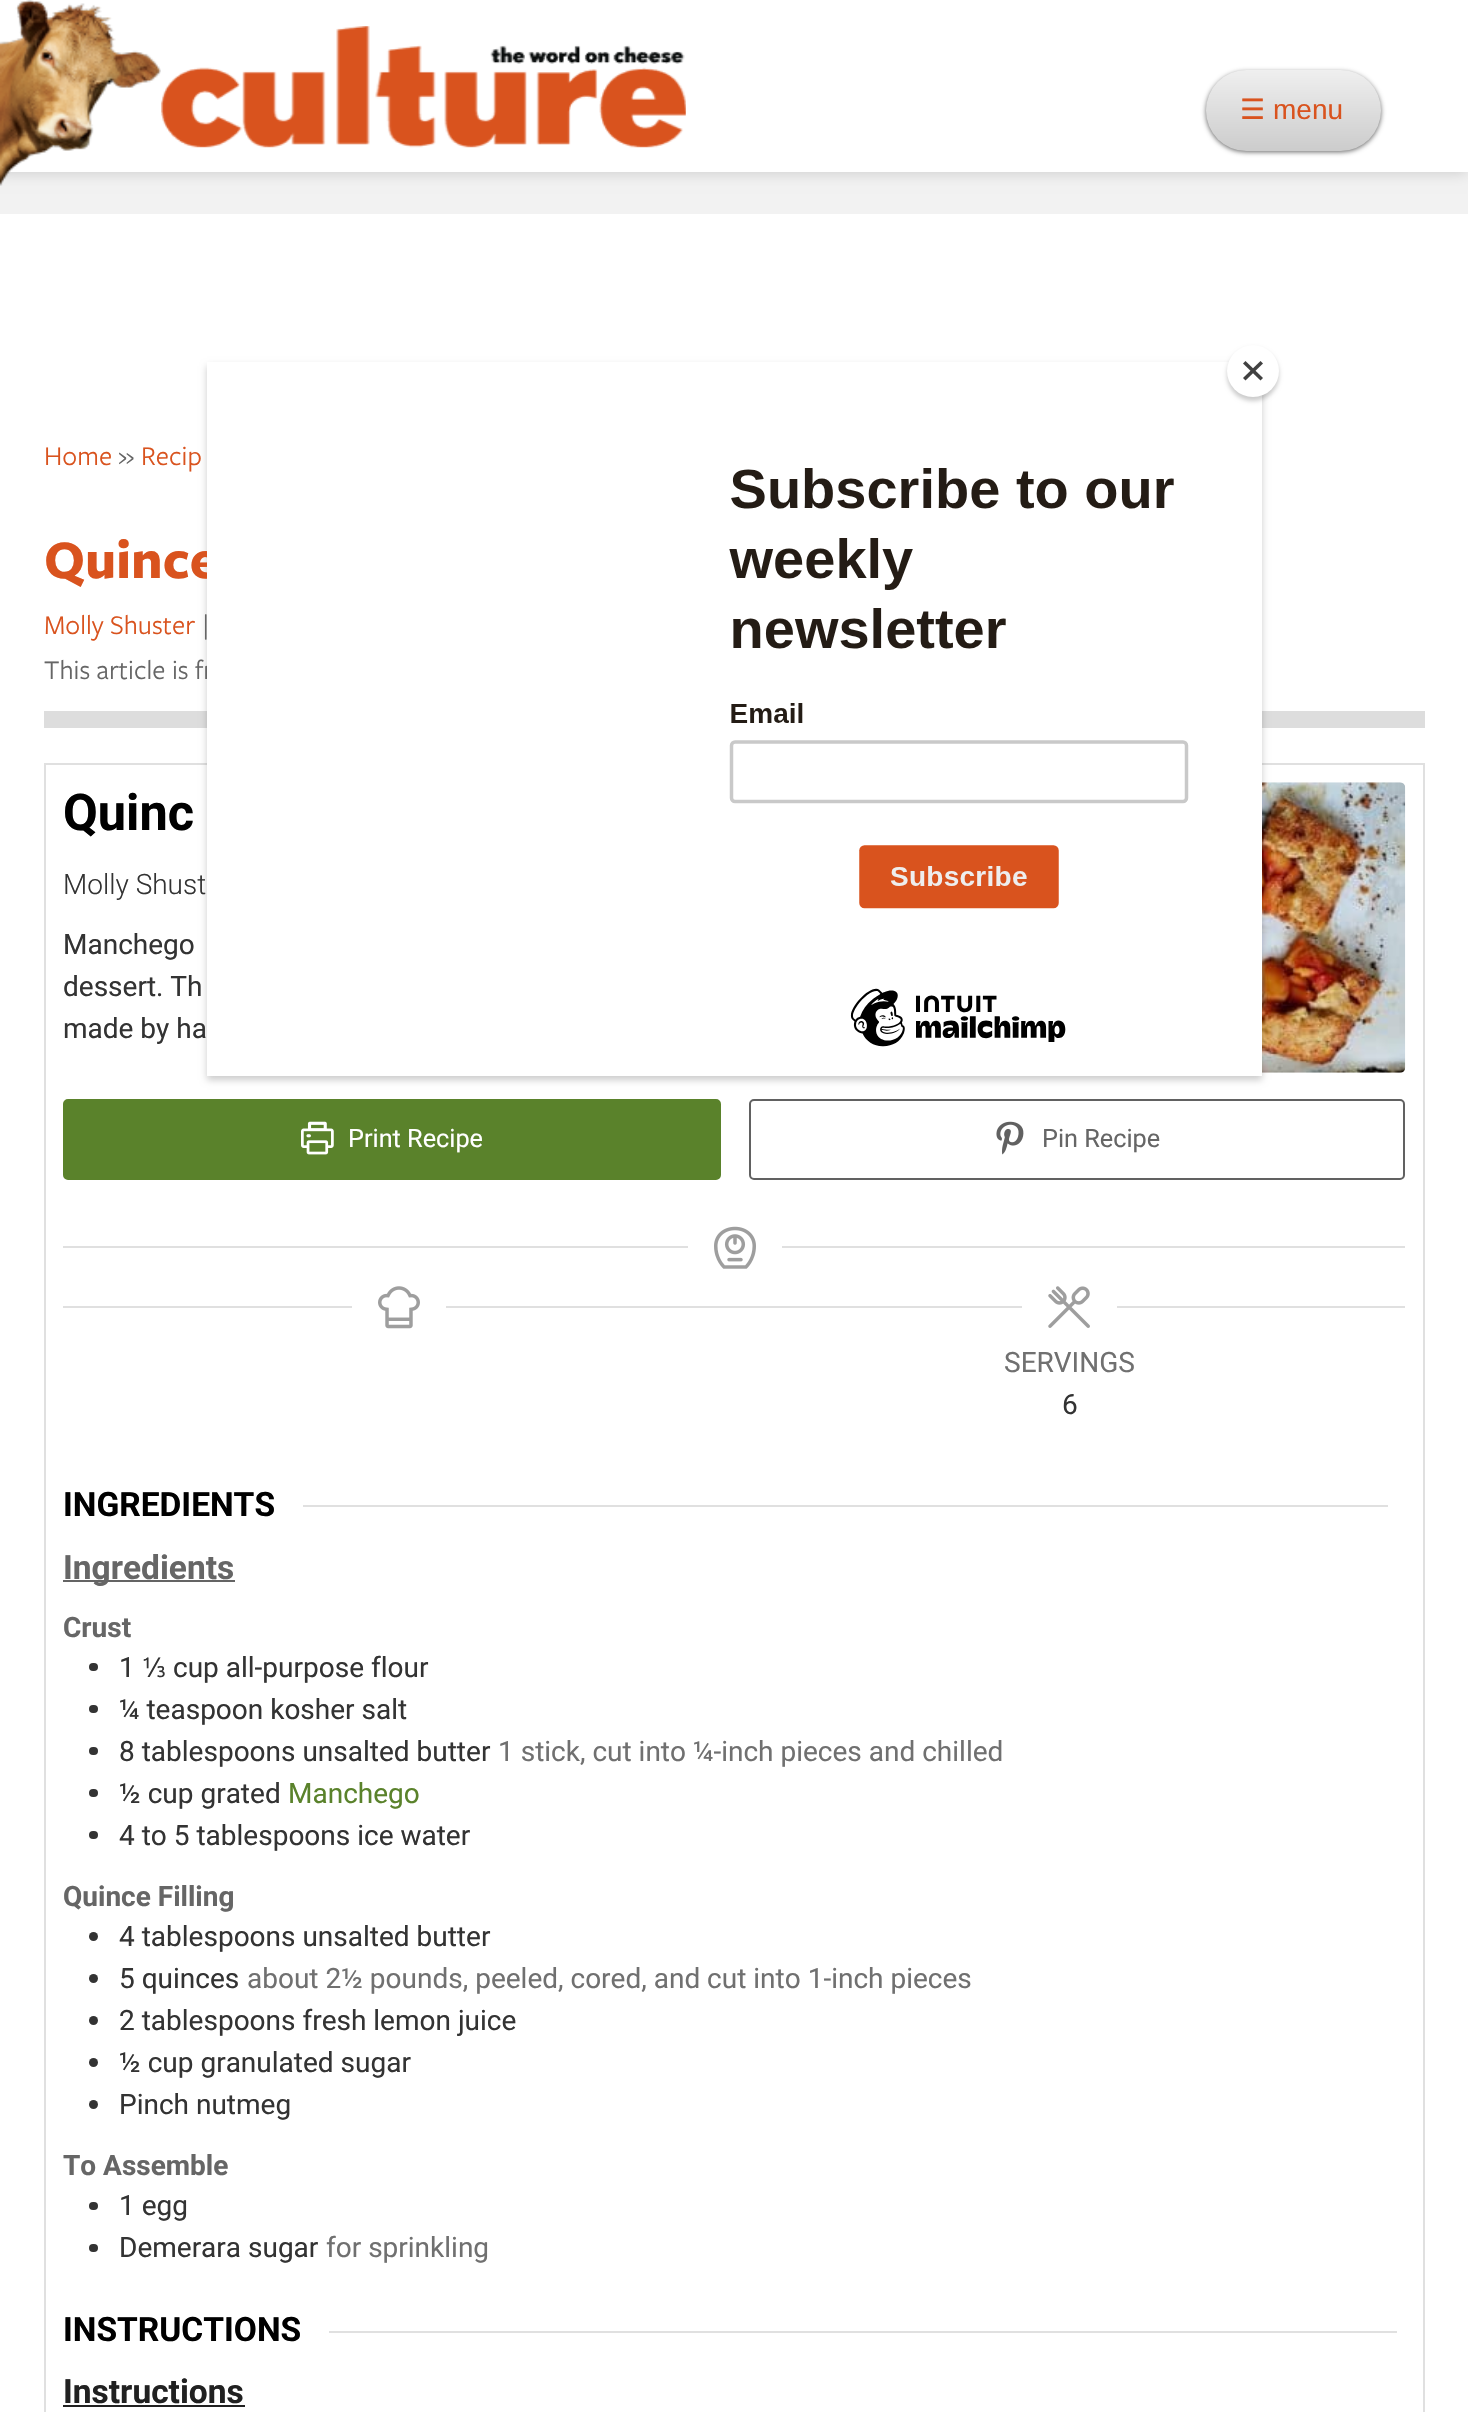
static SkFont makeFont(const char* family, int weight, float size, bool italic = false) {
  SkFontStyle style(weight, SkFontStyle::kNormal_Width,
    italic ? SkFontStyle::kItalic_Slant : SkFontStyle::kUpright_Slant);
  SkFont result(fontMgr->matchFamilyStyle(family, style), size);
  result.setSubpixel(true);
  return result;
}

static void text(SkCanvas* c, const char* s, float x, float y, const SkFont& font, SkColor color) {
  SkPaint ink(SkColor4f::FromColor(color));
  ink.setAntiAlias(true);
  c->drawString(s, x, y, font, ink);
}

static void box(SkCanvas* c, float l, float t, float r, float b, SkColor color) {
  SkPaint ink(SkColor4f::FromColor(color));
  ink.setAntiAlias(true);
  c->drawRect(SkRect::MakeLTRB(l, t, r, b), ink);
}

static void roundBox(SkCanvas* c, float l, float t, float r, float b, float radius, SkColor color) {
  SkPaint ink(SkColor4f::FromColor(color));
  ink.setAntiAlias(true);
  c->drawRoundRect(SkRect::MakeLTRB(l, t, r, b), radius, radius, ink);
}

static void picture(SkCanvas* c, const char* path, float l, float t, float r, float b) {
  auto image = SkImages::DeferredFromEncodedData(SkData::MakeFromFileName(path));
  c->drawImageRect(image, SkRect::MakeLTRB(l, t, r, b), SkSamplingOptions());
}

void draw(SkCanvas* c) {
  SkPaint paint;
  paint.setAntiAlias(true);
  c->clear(0xfff2f2f2);
  paint.setColor(0xffcccccc);
  paint.setMaskFilter(SkMaskFilter::MakeBlur(kNormal_SkBlurStyle, 7));
  c->drawRect(SkRect::MakeLTRB(-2, 2, 1467, 173), paint);
  paint.setMaskFilter(nullptr);
  box(c, 0, 0, 1468, 172, 0xffffffff);
  picture(c, "img_01.png", 0, 0, 161, 186);
  picture(c, "img_02.png", 161, 26, 686, 148);
  paint.setColor(0xff666666);
  paint.setMaskFilter(SkMaskFilter::MakeBlur(kNormal_SkBlurStyle, 2.5f));
  c->drawRoundRect(SkRect::MakeLTRB(1206, 72, 1381, 152), 40, 40, paint);
  paint.setMaskFilter(nullptr);
  {
    const SkColor colors[] = {0xffefefef, 0xffcccccc};
    const float stops[] = {0, 1};
    const SkPoint ends[] = {{1293, 70}, {1293, 151}};
    paint.setShader(SkGradientShader::MakeLinear(ends, colors, stops, 2, SkTileMode::kClamp));
    paint.setAlpha(255);
  }
  c->drawRoundRect(SkRect::MakeLTRB(1206, 70, 1381, 151), 40.5f, 40.5f, paint);
  SkFont face1 = makeFont("DejaVu Sans", 400, 28);
  text(c, "☰", 1240, 119, face1, 0xffd9531e);
  SkFont face2 = makeFont("Liberation Sans", 400, 28);
  text(c, "menu", 1273, 119, face2, 0xffd9531e);
  box(c, 0, 214, 1468, 2412, 0xffffffff);
  box(c, 44, 711, 1425, 728, 0xffdddddd);
  paint.setStyle(SkPaint::kStroke_Style);
  paint.setStrokeWidth(2);
  paint.setShader(nullptr);
  paint.setColor(0xffe0e0e0);
  c->drawRect(SkRect::MakeLTRB(45, 764, 1424, 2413), paint);
  picture(c, "img_04.png", 1262, 782, 1406, 1073);
  c->save();
  c->clipPath(SkPathBuilder(SkPathFillType::kEvenOdd).moveTo(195, 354).lineTo(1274, 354).lineTo(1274, 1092).lineTo(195, 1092).close().moveTo(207, 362).lineTo(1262, 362).lineTo(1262, 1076).lineTo(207, 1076).close().detach(), true);
  paint.setStyle(SkPaint::kFill_Style);
  paint.setColor(0x33000000);
  paint.setMaskFilter(SkMaskFilter::MakeBlur(kNormal_SkBlurStyle, 3.5f));
  c->drawRect(SkRect::MakeLTRB(207, 366, 1262, 1080), paint);
  paint.setMaskFilter(nullptr);
  c->restore();
  SkFont face3 = makeFont("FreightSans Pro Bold", 700, 56);
  text(c, "Quince", 44, 578, face3, 0xffd9531e);
  SkFont face4 = makeFont("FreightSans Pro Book", 400, 28);
  text(c, "This article is fr", 44, 679, face4, 0xff666666);
  picture(c, "img_03.png", 207, 367, 1262, 1076);
  paint.setMaskFilter(SkMaskFilter::MakeBlur(kNormal_SkBlurStyle, 2));
  c->drawRoundRect(SkRect::MakeLTRB(1227, 348, 1279, 401), 26, 26, paint);
  paint.setMaskFilter(nullptr);
  paint.setColor(0xffffffff);
  c->drawCircle(1253, 371, 26, paint);
  paint.setColor(0xff414141);
  c->drawPath(SkPathBuilder().moveTo(1260.5f, 361).lineTo(1263, 363.5f).lineTo(1245.5f, 380.5f).lineTo(1243, 378).close().detach(), paint);
  c->drawPath(SkPathBuilder().moveTo(1243, 363.5f).lineTo(1245.5f, 361).lineTo(1263, 378).lineTo(1260.5f, 380.5f).close().detach(), paint);
  text(c, "Home", 44, 465, face4, 0xffd9531e);
  text(c, "»", 118, 465, face4, 0xff666666);
  text(c, "Recip", 141, 465, face4, 0xffd9531e);
  text(c, "Molly Shuster", 44, 634, face4, 0xffd9531e);
  text(c, "|", 202, 634, face4, 0xff666666);
  SkFont face5 = makeFont("Roboto", 700, 50.5f);
  text(c, "Quinc", 63, 830, face5, 0xff000000);
  SkFont face6 = makeFont("Roboto", 300, 28);
  text(c, "Molly Shust", 63, 894, face6, 0xff333333);
  SkFont face7 = makeFont("Roboto", 400, 28);
  text(c, "Manchego", 63, 954, face7, 0xff333333);
  text(c, "dessert. Th", 63, 996, face7, 0xff333333);
  text(c, "made by ha", 63, 1038, face7, 0xff333333);
  paint.setColor(0xff5a822b);
  c->drawRoundRect(SkRect::MakeLTRB(64, 1100, 720, 1179), 4, 4, paint);
  paint.setStyle(SkPaint::kStroke_Style);
  c->drawRoundRect(SkRect::MakeLTRB(64, 1100, 720, 1179), 4, 4, paint);
  picture(c, "img_05.png", 301, 1121, 334, 1155);
  SkFont face8 = makeFont("Roboto", 400, 25.25f);
  text(c, "Print Recipe", 348, 1147, face8, 0xffffffff);
  paint.setColor(0xff616161);
  c->drawRoundRect(SkRect::MakeLTRB(750, 1100, 1404, 1179), 4, 4, paint);
  picture(c, "img_06.png", 996, 1121, 1024, 1155);
  text(c, "Pin Recipe", 1042, 1147, face8, 0xff666666);
  box(c, 63, 1246, 688, 1248, 0xffe0e0e0);
  picture(c, "img_07.png", 714, 1226, 756, 1269);
  box(c, 782, 1246, 1405, 1248, 0xffe0e0e0);
  box(c, 63, 1306, 352, 1308, 0xffe0e0e0);
  picture(c, "img_08.png", 378, 1286, 420, 1329);
  box(c, 446, 1306, 1022, 1308, 0xffe0e0e0);
  picture(c, "img_09.png", 1048, 1286, 1090, 1328);
  box(c, 1117, 1306, 1405, 1308, 0xffe0e0e0);
  text(c, "SERVINGS", 1004, 1372, face7, 0xff707070);
  text(c, "6", 1062, 1414, face7, 0xff333333);
  SkFont face9 = makeFont("Roboto", 700, 33.5f);
  text(c, "INGREDIENTS", 63, 1516, face9, 0xff000000);
  box(c, 303, 1505, 1388, 1507, 0xffe0e0e0);
  box(c, 63, 1580, 235, 1582, 0xff646464);
  text(c, "Ingredients", 63, 1579, face9, 0xff666666);
  SkFont face10 = makeFont("Roboto", 700, 28);
  text(c, "Crust", 63, 1637, face10, 0xff666666);
  roundBox(c, 89, 1663, 98, 1671, 4, 0xff333333);
  text(c, "1", 119, 1677, face7, 0xff333333);
  SkFont face11 = makeFont("Ubuntu", 400, 28);
  text(c, "⅓", 142, 1677, face11, 0xff333333);
  text(c, "cup all-purpose flour", 173, 1677, face7, 0xff333333);
  roundBox(c, 89, 1705, 98, 1713, 4, 0xff333333);
  text(c, "¼ teaspoon kosher salt", 119, 1719, face7, 0xff333333);
  roundBox(c, 89, 1747, 98, 1755, 4, 0xff333333);
  text(c, "8 tablespoons unsalted butter", 119, 1761, face7, 0xff333333);
  text(c, "1 stick, cut into ¼-inch pieces and chilled", 498, 1761, face7, 0xff707070);
  roundBox(c, 89, 1789, 98, 1797, 4, 0xff333333);
  text(c, "½ cup grated", 119, 1803, face7, 0xff333333);
  text(c, "Manchego", 288, 1803, face7, 0xff5a822b);
  roundBox(c, 89, 1831, 98, 1839, 4, 0xff333333);
  text(c, "4 to 5 tablespoons ice water", 119, 1845, face7, 0xff333333);
  text(c, "Quince Filling", 63, 1906, face10, 0xff666666);
  paint.setStyle(SkPaint::kFill_Style);
  paint.setColor(0xff333333);
  c->drawCircle(93.5f, 1936.5f, 4.5f, paint);
  text(c, "4 tablespoons unsalted butter", 119, 1946, face7, 0xff333333);
  c->drawCircle(93.5f, 1978.5f, 4.5f, paint);
  text(c, "5 quinces", 119, 1988, face7, 0xff333333);
  text(c, "about 2½ pounds, peeled, cored, and cut into 1-inch pieces", 247, 1988, face7, 0xff707070);
  c->drawCircle(93.5f, 2020.5f, 4.5f, paint);
  text(c, "2 tablespoons fresh lemon juice", 119, 2030, face7, 0xff333333);
  c->drawCircle(93.5f, 2062.5f, 4.5f, paint);
  text(c, "½ cup granulated sugar", 119, 2072, face7, 0xff333333);
  c->drawCircle(93.5f, 2104.5f, 4.5f, paint);
  text(c, "Pinch nutmeg", 119, 2114, face7, 0xff333333);
  text(c, "To Assemble", 63, 2175, face10, 0xff666666);
  roundBox(c, 89, 2202, 98, 2210, 4, 0xff333333);
  text(c, "1 egg", 119, 2215, face7, 0xff333333);
  roundBox(c, 89, 2244, 98, 2252, 4, 0xff333333);
  text(c, "Demerara sugar", 119, 2257, face7, 0xff333333);
  text(c, "for sprinkling", 326, 2257, face7, 0xff707070);
  text(c, "INSTRUCTIONS", 63, 2341, face9, 0xff000000);
  box(c, 329, 2331, 1397, 2333, 0xffe0e0e0);
  text(c, "Instructions", 63, 2403, face9, 0xff212121);
  box(c, 63, 2405, 245, 2407, 0xff212121);
}
